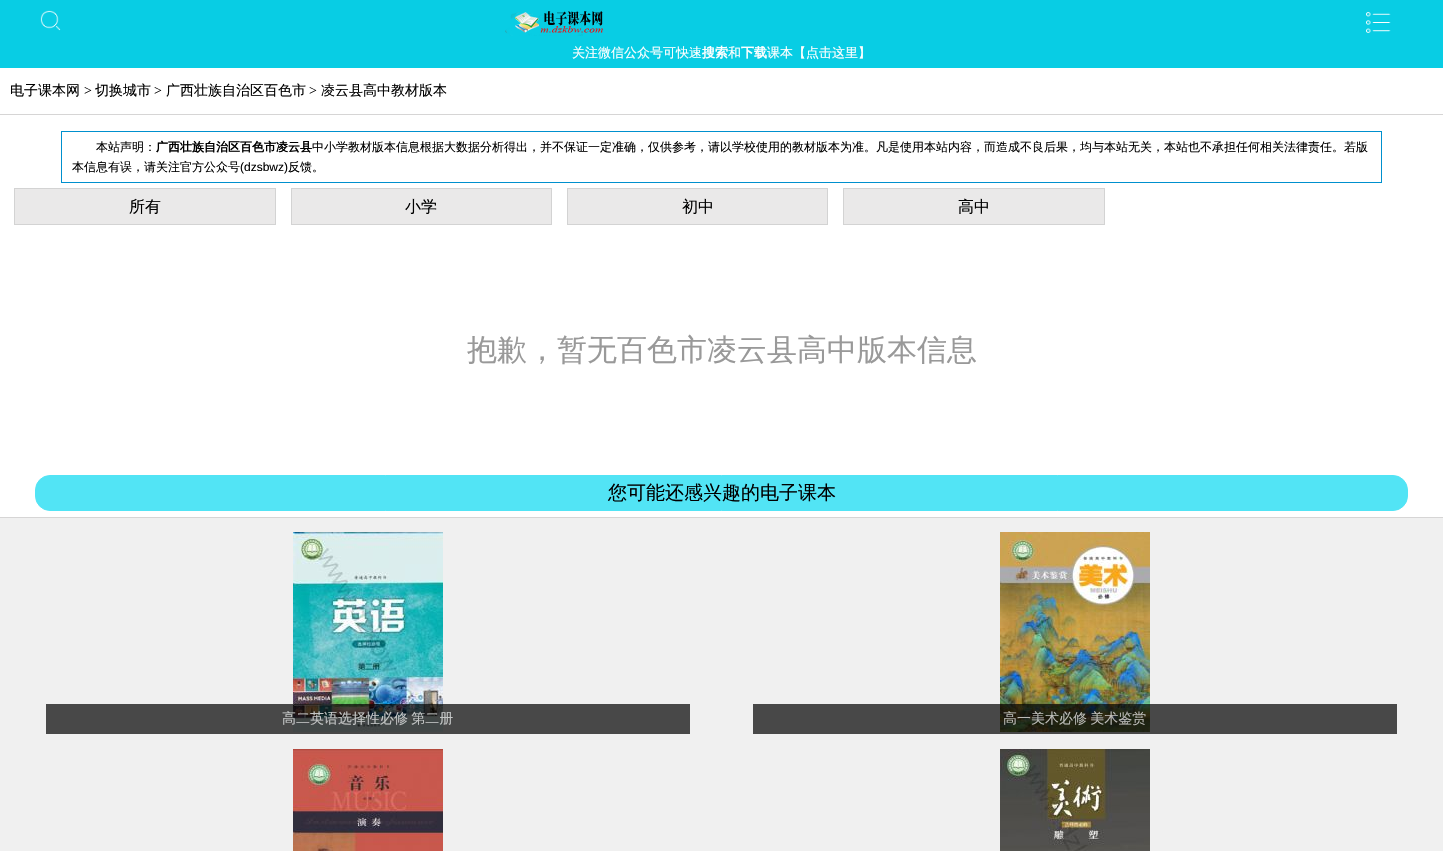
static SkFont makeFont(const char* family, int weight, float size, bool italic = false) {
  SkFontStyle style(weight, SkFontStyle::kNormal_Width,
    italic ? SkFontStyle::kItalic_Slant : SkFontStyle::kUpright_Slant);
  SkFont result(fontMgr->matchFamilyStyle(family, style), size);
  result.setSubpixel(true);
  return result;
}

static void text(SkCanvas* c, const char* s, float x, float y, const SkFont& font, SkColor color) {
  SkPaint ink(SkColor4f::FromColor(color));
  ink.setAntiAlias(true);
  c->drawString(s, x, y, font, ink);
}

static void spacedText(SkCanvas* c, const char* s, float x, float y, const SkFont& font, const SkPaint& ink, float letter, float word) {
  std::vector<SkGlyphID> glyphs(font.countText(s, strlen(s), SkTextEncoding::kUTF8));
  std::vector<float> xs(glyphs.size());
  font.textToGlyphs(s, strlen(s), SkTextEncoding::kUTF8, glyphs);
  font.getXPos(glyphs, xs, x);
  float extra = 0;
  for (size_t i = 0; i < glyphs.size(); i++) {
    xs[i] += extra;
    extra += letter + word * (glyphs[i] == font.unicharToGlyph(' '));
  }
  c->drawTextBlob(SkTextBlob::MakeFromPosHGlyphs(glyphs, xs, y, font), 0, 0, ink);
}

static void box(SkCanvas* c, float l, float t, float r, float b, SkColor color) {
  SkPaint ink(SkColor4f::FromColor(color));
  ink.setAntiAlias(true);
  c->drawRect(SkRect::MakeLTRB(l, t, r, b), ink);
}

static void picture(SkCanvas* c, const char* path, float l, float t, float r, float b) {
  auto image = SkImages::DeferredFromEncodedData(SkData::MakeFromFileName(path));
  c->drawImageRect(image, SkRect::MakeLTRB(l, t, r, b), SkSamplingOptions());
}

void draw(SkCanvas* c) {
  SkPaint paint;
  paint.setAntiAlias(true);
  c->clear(0xffffffff);
  box(c, 0, 0, 1443, 68, 0xff08cde4);
  picture(c, "img_01.png", 40, 10, 61, 31);
  picture(c, "img_02.png", 505, 11, 603, 36);
  picture(c, "img_03.png", 1366, 12, 1391, 33);
  SkFont face1 = makeFont("WenQuanYi Zen Hei", 500, 13);
  text(c, "关注微信公众号可快速", 572, 57, face1, 0xffffffff);
  SkFont face2 = makeFont("WenQuanYi Zen Hei", 700, 13);
  text(c, "搜索", 702, 57, face2, 0xffffffff);
  text(c, "和", 728, 57, face1, 0xffffffff);
  text(c, "下载", 741, 57, face2, 0xffffffff);
  text(c, "课本【点击这里】", 767, 57, face1, 0xffffffff);
  box(c, 0, 114, 1443, 115, 0xffd6d5d5);
  SkFont face3 = makeFont("WenQuanYi Zen Hei", 500, 14);
  text(c, "电子课本网", 10, 95, face3, 0xff000000);
  SkFont face4 = makeFont("Liberation Serif", 400, 14);
  text(c, ">", 84, 95, face4, 0xff000000);
  text(c, "切换城市", 95, 95, face3, 0xff000000);
  text(c, ">", 154, 95, face4, 0xff000000);
  text(c, "广西壮族自治区百色市", 166, 95, face3, 0xff000000);
  text(c, ">", 309, 95, face4, 0xff000000);
  text(c, "凌云县高中教材版本", 321, 95, face3, 0xff000000);
  paint.setStyle(SkPaint::kStroke_Style);
  paint.setStrokeWidth(1);
  paint.setColor(0xff0090ce);
  c->drawRect(SkRect::MakeLTRB(61.5f, 131.5f, 1381.5f, 182.5f), paint);
  SkFont face5 = makeFont("WenQuanYi Zen Hei", 500, 12);
  text(c, "本站声明：", 96, 151, face5, 0xff000000);
  SkFont face6 = makeFont("WenQuanYi Zen Hei", 700, 12);
  text(c, "广西壮族自治区百色市凌云县", 156, 151, face6, 0xff000000);
  text(c, "中小学教材版本信息根据大数据分析得出，并不保证一定准确，仅供参考，请以学校使用的教材版本为准。凡是使用本站内容，而造成不良后果，均与本站无关，本站也不承担任何相关法律责任。若版", 312, 151, face5, 0xff000000);
  text(c, "本信息有误，请关注官方公众号", 72, 171, face5, 0xff000000);
  SkFont face7 = makeFont("Liberation Sans", 400, 12);
  text(c, "(dzsbwz)", 240, 171, face7, 0xff000000);
  text(c, "反馈。", 288, 171, face5, 0xff000000);
  paint.setColor(0xffd3d3d3);
  c->drawRect(SkRect::MakeLTRB(14.5f, 188.5f, 275.5f, 224.5f), paint);
  box(c, 15, 189, 275, 224, 0xffeae9e9);
  SkFont face8 = makeFont("WenQuanYi Zen Hei", 500, 16);
  text(c, "所有", 129, 212, face8, 0xff000000);
  c->drawRect(SkRect::MakeLTRB(291.5f, 188.5f, 551.5f, 224.5f), paint);
  box(c, 292, 189, 551, 224, 0xffeae9e9);
  text(c, "小学", 405, 212, face8, 0xff000000);
  c->drawRect(SkRect::MakeLTRB(567.5f, 188.5f, 827.5f, 224.5f), paint);
  box(c, 568, 189, 827, 224, 0xffeae9e9);
  text(c, "初中", 682, 212, face8, 0xff000000);
  c->drawRect(SkRect::MakeLTRB(843.5f, 188.5f, 1104.5f, 224.5f), paint);
  box(c, 844, 189, 1104, 224, 0xffeae9e9);
  text(c, "高中", 958, 212, face8, 0xff000000);
  SkFont face9 = makeFont("WenQuanYi Zen Hei", 500, 30);
  text(c, "抱歉，暂无百色市凌云县高中版本信息", 467, 360, face9, 0xff999999);
  box(c, 0, 518, 1443, 851, 0xfff0f0f0);
  box(c, 0, 517, 1443, 518, 0xffd6d5d5);
  paint.setStyle(SkPaint::kFill_Style);
  paint.setColor(0xff52e4f5);
  c->drawRoundRect(SkRect::MakeLTRB(35.5f, 475.5f, 1407.5f, 510.5f), 14.5f, 14.5f, paint);
  paint.setStyle(SkPaint::kStroke_Style);
  c->drawRoundRect(SkRect::MakeLTRB(35.5f, 475.5f, 1407.5f, 510.5f), 14.5f, 14.5f, paint);
  SkFont face10 = makeFont("WenQuanYi Zen Hei", 500, 19);
  text(c, "您可能还感兴趣的电子课本", 608, 499, face10, 0xff000000);
  picture(c, "img_04.png", 293, 532, 443, 732);
  box(c, 46, 704, 690, 734, 0xb3000000);
  paint.setStyle(SkPaint::kFill_Style);
  paint.setColor(0xffc3c5c5);
  spacedText(c, "高二英语选择性必修 第二册", 282, 723, face3, paint, 0, -1);
  picture(c, "img_05.png", 1000, 532, 1150, 732);
  box(c, 753, 704, 1397, 734, 0xb3000000);
  paint.setColor(0xffbcbcb8);
  spacedText(c, "高一美术必修 美术鉴赏", 1003, 723, face3, paint, 0, -1);
  picture(c, "img_06.png", 293, 749, 443, 851);
  picture(c, "img_07.png", 1000, 749, 1150, 851);
}
